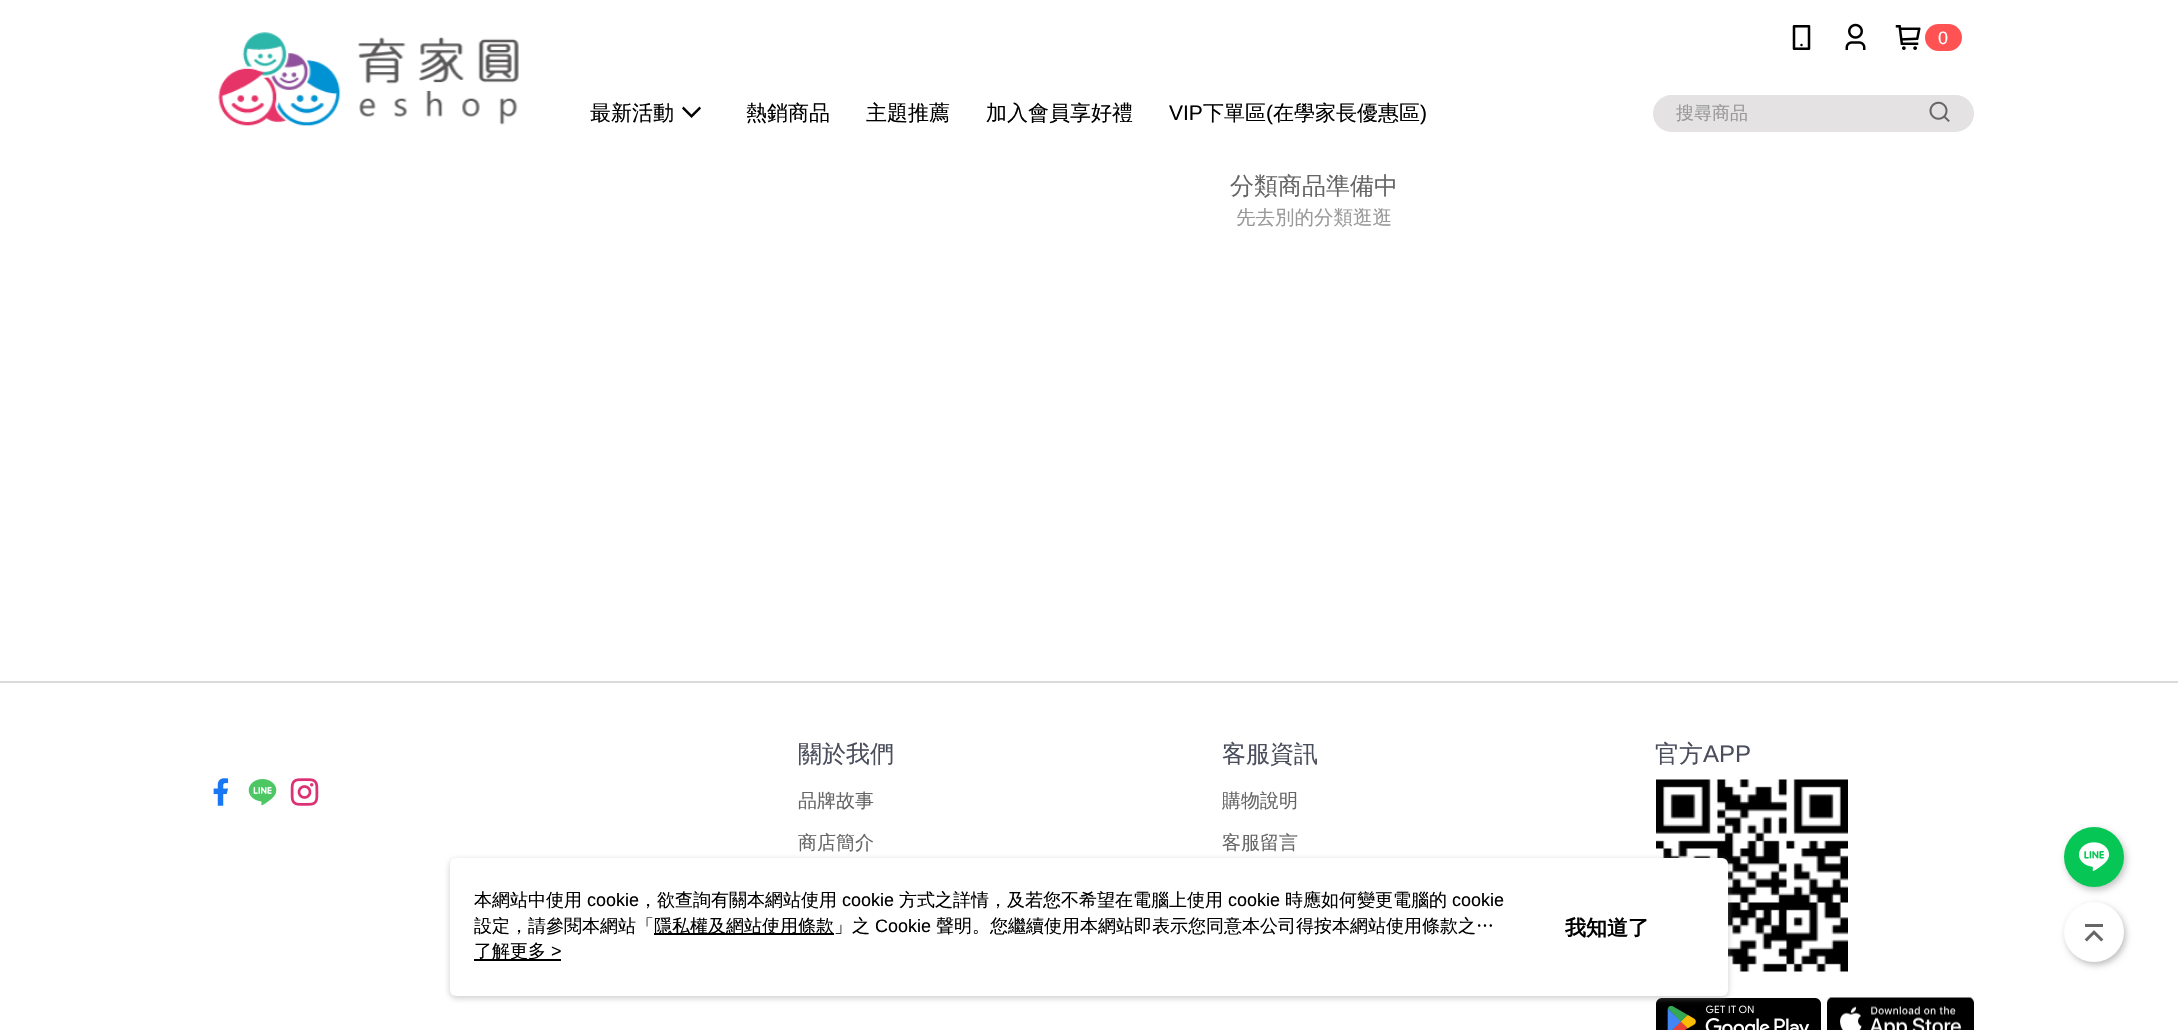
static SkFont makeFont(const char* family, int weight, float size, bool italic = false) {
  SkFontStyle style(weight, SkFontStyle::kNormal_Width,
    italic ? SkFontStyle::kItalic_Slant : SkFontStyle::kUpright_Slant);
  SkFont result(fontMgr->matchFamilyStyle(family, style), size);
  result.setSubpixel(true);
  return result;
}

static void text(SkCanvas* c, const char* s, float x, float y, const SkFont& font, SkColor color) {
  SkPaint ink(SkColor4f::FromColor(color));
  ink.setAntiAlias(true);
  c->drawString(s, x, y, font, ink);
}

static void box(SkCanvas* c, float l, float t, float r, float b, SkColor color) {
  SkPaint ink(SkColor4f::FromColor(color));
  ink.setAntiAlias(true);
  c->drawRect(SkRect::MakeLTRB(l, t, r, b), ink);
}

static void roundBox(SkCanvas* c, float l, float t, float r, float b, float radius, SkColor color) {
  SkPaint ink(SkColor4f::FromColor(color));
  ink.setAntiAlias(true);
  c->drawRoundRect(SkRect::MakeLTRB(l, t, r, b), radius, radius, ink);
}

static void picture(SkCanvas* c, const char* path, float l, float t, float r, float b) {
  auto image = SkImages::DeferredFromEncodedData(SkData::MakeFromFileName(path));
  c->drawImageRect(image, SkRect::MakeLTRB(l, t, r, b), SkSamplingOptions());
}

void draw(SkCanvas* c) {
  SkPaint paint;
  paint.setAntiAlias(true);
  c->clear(0xffffffff);
  picture(c, "img_01.png", 218, 32, 519, 126);
  picture(c, "img_02.png", 1792, 25, 1811, 50);
  picture(c, "img_03.png", 1845, 23, 1866, 50);
  picture(c, "img_04.png", 1895, 25, 1921, 50);
  roundBox(c, 1925, 24, 1962, 51, 13.5f, 0xffff5353);
  SkFont face1 = makeFont("Liberation Sans", 400, 18);
  text(c, "0", 1938, 44, face1, 0xffffffff);
  SkFont face2 = makeFont("WenQuanYi Zen Hei", 500, 21);
  text(c, "最新活動", 590, 120, face2, 0xff000000);
  paint.setColor(0xff000000);
  c->drawPath(SkPathBuilder().moveTo(683.5f, 106.5f).lineTo(682, 108.5f).lineTo(691.5f, 118).lineTo(701, 108.5f).lineTo(699.5f, 106.5f).lineTo(691.5f, 114.5f).close().detach(), paint);
  text(c, "熱銷商品", 746, 120, face2, 0xff000000);
  text(c, "主題推薦", 866, 120, face2, 0xff000000);
  text(c, "加入會員享好禮", 986, 120, face2, 0xff000000);
  SkFont face3 = makeFont("Liberation Sans", 400, 21);
  text(c, "VIP", 1169, 120, face3, 0xff000000);
  text(c, "下單區", 1203, 120, face2, 0xff000000);
  text(c, "(", 1266, 120, face3, 0xff000000);
  text(c, "在學家長優惠區", 1273, 120, face2, 0xff000000);
  text(c, ")", 1420, 120, face3, 0xff000000);
  roundBox(c, 1653, 95, 1974, 132, 18.5f, 0xffe4e2e2);
  SkFont face4 = makeFont("WenQuanYi Zen Hei", 500, 18);
  text(c, "搜尋商品", 1676, 119, face4, 0xff999999);
  picture(c, "img_05.png", 1929, 101, 1950, 122);
  paint.setColor(0x40000000);
  paint.setMaskFilter(SkMaskFilter::MakeBlur(kNormal_SkBlurStyle, 3.5f));
  c->drawRoundRect(SkRect::MakeLTRB(2066, 830, 2126, 890), 30, 30, paint);
  paint.setMaskFilter(nullptr);
  paint.setColor(0xff06c755);
  c->drawCircle(2094, 857, 30, paint);
  picture(c, "img_06.png", 2079, 842, 2109, 871);
  paint.setColor(0x40000000);
  paint.setMaskFilter(SkMaskFilter::MakeBlur(kNormal_SkBlurStyle, 3));
  c->drawRoundRect(SkRect::MakeLTRB(2066, 905, 2126, 965), 30, 30, paint);
  paint.setMaskFilter(nullptr);
  paint.setColor(0xffffffff);
  c->drawCircle(2094, 932, 30, paint);
  picture(c, "img_07.png", 2084, 924, 2104, 942);
  SkFont face5 = makeFont("WenQuanYi Zen Hei", 500, 24);
  text(c, "分類商品準備中", 1230, 194, face5, 0xff666666);
  SkFont face6 = makeFont("WenQuanYi Zen Hei", 500, 19.5f);
  text(c, "先去別的分類逛逛", 1236, 224, face6, 0xff999999);
  box(c, 0, 681, 2178, 683, 0xffdadada);
  text(c, "關於我們", 798, 762, face5, 0xff4a4e5c);
  SkFont face7 = makeFont("WenQuanYi Zen Hei", 500, 19);
  text(c, "品牌故事", 798, 807, face7, 0xff666666);
  text(c, "商店簡介", 798, 849, face7, 0xff666666);
  text(c, "客服資訊", 1222, 762, face5, 0xff4a4e5c);
  text(c, "購物說明", 1222, 807, face7, 0xff666666);
  text(c, "客服留言", 1222, 849, face7, 0xff666666);
  text(c, "官方", 1655, 762, face5, 0xff4a4e5c);
  SkFont face8 = makeFont("Liberation Sans", 400, 24);
  text(c, "APP", 1703, 762, face8, 0xff4a4e5c);
  picture(c, "img_08.png", 1656, 779, 1848, 972);
  picture(c, "img_09.png", 1656, 998, 1821, 1030);
  picture(c, "img_10.png", 1827, 997, 1974, 1030);
  picture(c, "img_11.png", 213, 778, 229, 806);
  picture(c, "img_12.png", 248, 779, 277, 806);
  picture(c, "img_13.png", 290, 778, 319, 806);
  paint.setColor(0x80979797);
  paint.setMaskFilter(SkMaskFilter::MakeBlur(kNormal_SkBlurStyle, 3));
  c->drawRoundRect(SkRect::MakeLTRB(450, 860, 1728, 998), 6, 6, paint);
  paint.setMaskFilter(nullptr);
  roundBox(c, 450, 858, 1728, 996, 6, 0xffffffff);
  text(c, "本網站中使用", 474, 906, face4, 0xff000000);
  text(c, "cookie", 587, 906, face1, 0xff000000);
  text(c, "，欲查詢有關本網站使用", 639, 906, face4, 0xff000000);
  text(c, "cookie", 842, 906, face1, 0xff000000);
  text(c, "方式之詳情，及若您不希望在電腦上使用", 899, 906, face4, 0xff000000);
  text(c, "cookie", 1228, 906, face1, 0xff000000);
  text(c, "時應如何變更電腦的", 1285, 906, face4, 0xff000000);
  text(c, "cookie", 1452, 906, face1, 0xff000000);
  text(c, "設定，請參閱本網站「", 474, 932, face4, 0xff000000);
  box(c, 654, 933, 834, 935, 0xff000000);
  text(c, "隱私權及網站使用條款」之", 654, 932, face4, 0xff000000);
  text(c, "Cookie", 875, 932, face1, 0xff000000);
  text(c, "聲明。您繼續使用本網站即表示您同意本公司得按本網站使用條款之…", 936, 932, face4, 0xff000000);
  box(c, 474, 959, 561, 961, 0xff000000);
  text(c, "了解更多", 474, 957, face4, 0xff000000);
  text(c, ">", 551, 957, face1, 0xff000000);
  SkFont face9 = makeFont("WenQuanYi Zen Hei", 700, 21);
  text(c, "我知道了", 1565, 935, face9, 0xff000000);
}
